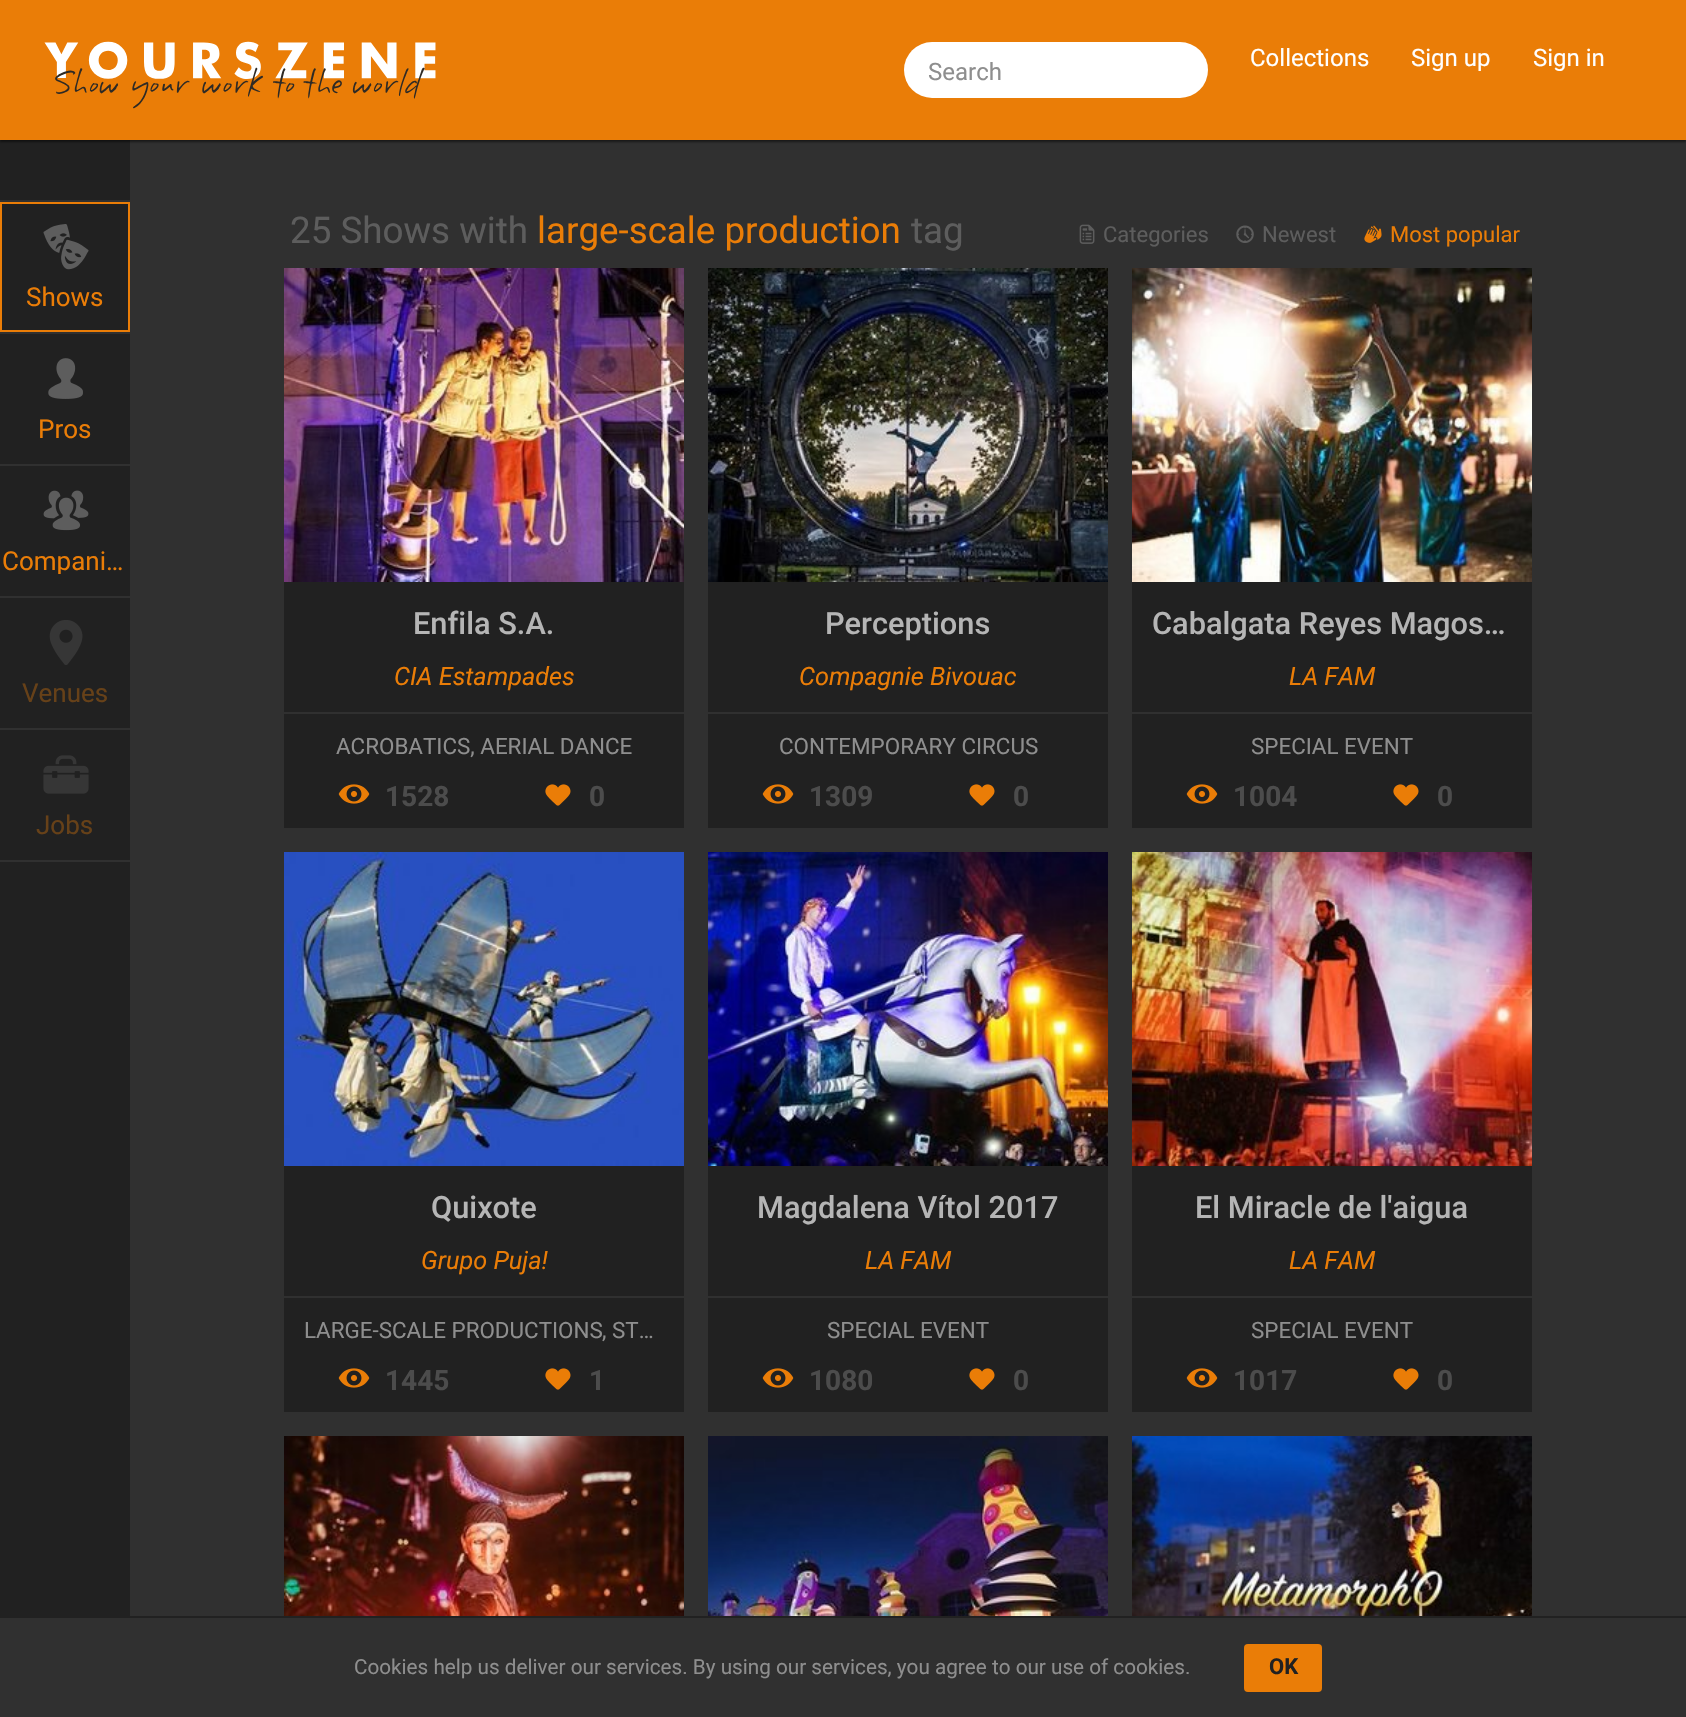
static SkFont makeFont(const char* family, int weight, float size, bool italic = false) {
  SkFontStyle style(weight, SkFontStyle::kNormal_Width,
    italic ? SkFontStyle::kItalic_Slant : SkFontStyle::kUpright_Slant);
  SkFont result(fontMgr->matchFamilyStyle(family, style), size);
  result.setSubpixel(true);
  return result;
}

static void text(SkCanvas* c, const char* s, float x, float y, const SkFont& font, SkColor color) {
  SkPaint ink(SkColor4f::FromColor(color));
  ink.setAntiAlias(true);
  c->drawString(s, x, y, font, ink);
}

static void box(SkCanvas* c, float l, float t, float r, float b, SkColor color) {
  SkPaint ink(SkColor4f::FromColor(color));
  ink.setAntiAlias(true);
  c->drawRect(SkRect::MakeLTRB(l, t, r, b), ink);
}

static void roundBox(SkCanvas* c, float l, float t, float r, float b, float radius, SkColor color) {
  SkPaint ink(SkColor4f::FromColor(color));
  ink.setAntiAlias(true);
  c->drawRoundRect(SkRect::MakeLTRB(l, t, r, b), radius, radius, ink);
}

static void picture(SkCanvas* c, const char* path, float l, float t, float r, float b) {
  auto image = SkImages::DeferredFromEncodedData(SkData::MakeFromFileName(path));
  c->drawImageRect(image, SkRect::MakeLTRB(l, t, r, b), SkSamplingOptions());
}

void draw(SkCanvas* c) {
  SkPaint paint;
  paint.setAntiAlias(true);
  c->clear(0xff303030);
  box(c, 0, 140, 130, 1616, 0xff212121);
  paint.setColor(0x80000000);
  paint.setMaskFilter(SkMaskFilter::MakeBlur(kNormal_SkBlurStyle, 1));
  c->drawRect(SkRect::MakeLTRB(0, 2, 1686, 142), paint);
  paint.setMaskFilter(nullptr);
  box(c, 0, 0, 1686, 140, 0xffea7d07);
  picture(c, "img_01.png", 44, 41, 436, 109);
  roundBox(c, 904, 42, 1208, 98, 28, 0xffffffff);
  SkFont face1 = makeFont("Roboto", 400, 24);
  text(c, "Search", 928, 80, face1, 0xff8e8e8e);
  text(c, "Collections", 1250, 66, face1, 0xffffffff);
  text(c, "Sign up", 1411, 66, face1, 0xffffffff);
  text(c, "Sign in", 1533, 66, face1, 0xffffffff);
  box(c, 0, 200, 130, 202, 0xff303030);
  paint.setStyle(SkPaint::kStroke_Style);
  paint.setStrokeWidth(2);
  paint.setColor(0xffea7d07);
  c->drawRect(SkRect::MakeLTRB(1, 203, 129, 331), paint);
  picture(c, "img_02.png", 43, 224, 89, 270);
  SkFont face2 = makeFont("Roboto", 400, 26);
  text(c, "Shows", 26, 306, face2, 0xffea7d07);
  box(c, 0, 332, 130, 334, 0xff303030);
  picture(c, "img_03.png", 48, 358, 83, 399);
  text(c, "Pros", 38, 438, face2, 0xffea7d07);
  box(c, 0, 464, 130, 466, 0xff303030);
  picture(c, "img_04.png", 43, 490, 89, 531);
  c->save();
  c->clipRect(SkRect::MakeLTRB(2, 548, 128, 574));
  text(c, "Compani…", 2, 570, face2, 0xffea7d07);
  c->restore();
  box(c, 0, 596, 130, 598, 0xff303030);
  picture(c, "img_05.png", 49, 620, 83, 665);
  text(c, "Venues", 22, 702, face2, 0xff674118);
  box(c, 0, 728, 130, 730, 0xff303030);
  picture(c, "img_06.png", 43, 755, 89, 794);
  text(c, "Jobs", 36, 834, face2, 0xff674118);
  box(c, 0, 860, 130, 862, 0xff303030);
  SkFont face3 = makeFont("Roboto", 400, 36.75f);
  text(c, "25 Shows with", 290, 243, face3, 0xff5d5d5d);
  text(c, "large-scale production", 537, 243, face3, 0xffea7d07);
  text(c, "tag", 911, 243, face3, 0xff5d5d5d);
  picture(c, "img_07.png", 1079, 224, 1095, 244);
  SkFont face4 = makeFont("Roboto", 400, 22);
  text(c, "Categories", 1103, 242, face4, 0xff5d5d5d);
  picture(c, "img_08.png", 1236, 225, 1254, 243);
  text(c, "Newest", 1262, 242, face4, 0xff5d5d5d);
  picture(c, "img_09.png", 1364, 225, 1382, 243);
  text(c, "Most popular", 1390, 242, face4, 0xffea7d07);
  box(c, 284, 582, 684, 828, 0xff212121);
  picture(c, "img_10.png", 284, 268, 684, 582);
  SkFont face5 = makeFont("Roboto", 500, 30.75f);
  text(c, "Enfila S.A.", 413, 634, face5, 0xffb5b5b5);
  SkFont face6 = makeFont("Roboto", 400, 25.25f, true);
  text(c, "CIA Estampades", 394, 685, face6, 0xffea7d07);
  box(c, 284, 712, 684, 714, 0xff303030);
  SkFont face7 = makeFont("Roboto", 400, 22.4f);
  text(c, "ACROBATICS, AERIAL DANCE", 336, 754, face7, 0xff8e8e8e);
  picture(c, "img_11.png", 338, 784, 370, 804);
  SkFont face8 = makeFont("Roboto", 700, 28);
  text(c, "1528", 385, 806, face8, 0xff4c4c4c);
  picture(c, "img_12.png", 545, 784, 571, 806);
  text(c, "0", 589, 806, face8, 0xff4c4c4c);
  box(c, 708, 582, 1108, 828, 0xff212121);
  picture(c, "img_13.png", 708, 268, 1108, 582);
  text(c, "Perceptions", 825, 634, face5, 0xffb5b5b5);
  text(c, "Compagnie Bivouac", 799, 685, face6, 0xffea7d07);
  box(c, 708, 712, 1108, 714, 0xff303030);
  text(c, "CONTEMPORARY CIRCUS", 779, 754, face7, 0xff8e8e8e);
  picture(c, "img_11.png", 762, 784, 794, 804);
  text(c, "1309", 809, 806, face8, 0xff4c4c4c);
  picture(c, "img_12.png", 969, 784, 995, 806);
  text(c, "0", 1013, 806, face8, 0xff4c4c4c);
  box(c, 1132, 582, 1532, 828, 0xff212121);
  picture(c, "img_14.png", 1132, 268, 1532, 582);
  text(c, "Cabalgata Reyes Magos…", 1152, 634, face5, 0xffb5b5b5);
  text(c, "LA FAM", 1289, 685, face6, 0xffea7d07);
  box(c, 1132, 712, 1532, 714, 0xff303030);
  text(c, "SPECIAL EVENT", 1251, 754, face7, 0xff8e8e8e);
  picture(c, "img_11.png", 1186, 784, 1218, 804);
  text(c, "1004", 1233, 806, face8, 0xff4c4c4c);
  picture(c, "img_12.png", 1393, 784, 1419, 806);
  text(c, "0", 1437, 806, face8, 0xff4c4c4c);
  box(c, 284, 1166, 684, 1412, 0xff212121);
  picture(c, "img_15.png", 284, 852, 684, 1166);
  text(c, "Quixote", 431, 1218, face5, 0xffb5b5b5);
  text(c, "Grupo Puja!", 421, 1269, face6, 0xffea7d07);
  box(c, 284, 1296, 684, 1298, 0xff303030);
  text(c, "LARGE-SCALE PRODUCTIONS", 304, 1338, face7, 0xff8e8e8e);
  text(c, ", ST…", 602, 1338, face7, 0xff8e8e8e);
  picture(c, "img_11.png", 338, 1368, 370, 1388);
  text(c, "1445", 385, 1390, face8, 0xff4c4c4c);
  picture(c, "img_12.png", 545, 1368, 571, 1390);
  text(c, "1", 589, 1390, face8, 0xff4c4c4c);
  box(c, 708, 1166, 1108, 1412, 0xff212121);
  picture(c, "img_16.png", 708, 852, 1108, 1166);
  text(c, "Magdalena Vítol 2017", 757, 1218, face5, 0xffb5b5b5);
  text(c, "LA FAM", 865, 1269, face6, 0xffea7d07);
  box(c, 708, 1296, 1108, 1298, 0xff303030);
  text(c, "SPECIAL EVENT", 827, 1338, face7, 0xff8e8e8e);
  picture(c, "img_11.png", 762, 1368, 794, 1388);
  text(c, "1080", 809, 1390, face8, 0xff4c4c4c);
  picture(c, "img_12.png", 969, 1368, 995, 1390);
  text(c, "0", 1013, 1390, face8, 0xff4c4c4c);
  box(c, 1132, 1166, 1532, 1412, 0xff212121);
  picture(c, "img_17.png", 1132, 852, 1532, 1166);
  text(c, "El Miracle de l'aigua", 1195, 1218, face5, 0xffb5b5b5);
  text(c, "LA FAM", 1289, 1269, face6, 0xffea7d07);
  box(c, 1132, 1296, 1532, 1298, 0xff303030);
  text(c, "SPECIAL EVENT", 1251, 1338, face7, 0xff8e8e8e);
  picture(c, "img_11.png", 1186, 1368, 1218, 1388);
  text(c, "1017", 1233, 1390, face8, 0xff4c4c4c);
  picture(c, "img_12.png", 1393, 1368, 1419, 1390);
  text(c, "0", 1437, 1390, face8, 0xff4c4c4c);
  picture(c, "img_18.png", 284, 1436, 684, 1616);
  picture(c, "img_19.png", 708, 1436, 1108, 1616);
  picture(c, "img_20.png", 1132, 1436, 1532, 1616);
  box(c, 0, 1616, 1686, 1618, 0xff212121);
  SkFont face9 = makeFont("Roboto", 400, 20.7f);
  text(c, "Cookies help us deliver our services. By using our services, you agree to our use of cookies.", 354, 1674, face9, 0xff8e8e8e);
  roundBox(c, 1244, 1644, 1322, 1692, 4, 0xffea7d07);
  SkFont face10 = makeFont("Roboto", 700, 22);
  text(c, "OK", 1269, 1674, face10, 0xff212121);
}
